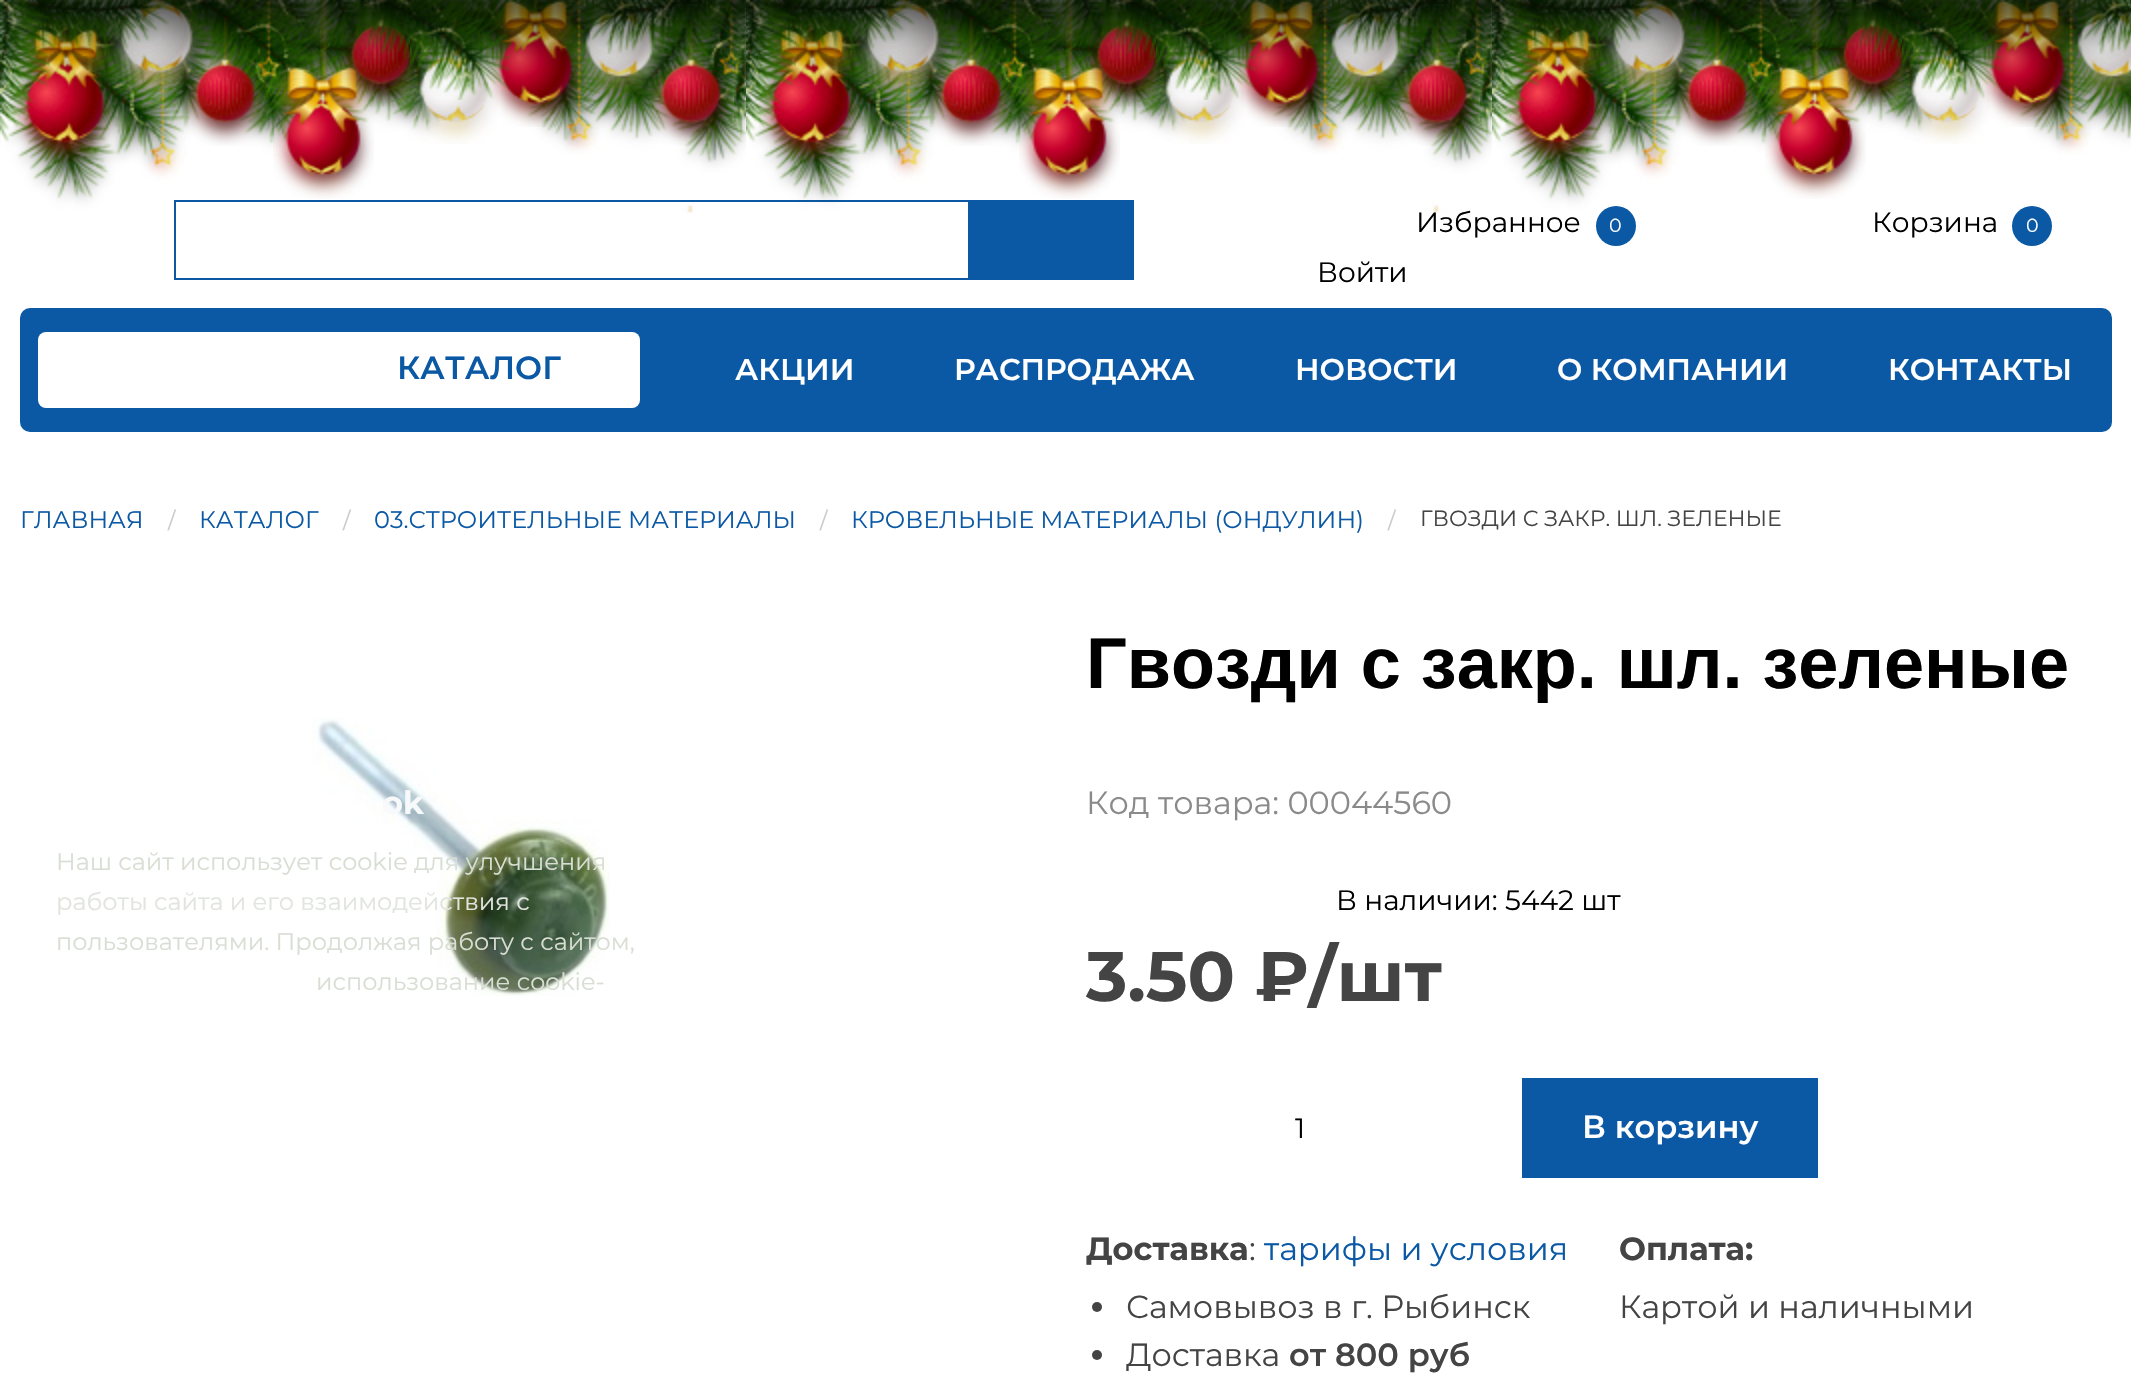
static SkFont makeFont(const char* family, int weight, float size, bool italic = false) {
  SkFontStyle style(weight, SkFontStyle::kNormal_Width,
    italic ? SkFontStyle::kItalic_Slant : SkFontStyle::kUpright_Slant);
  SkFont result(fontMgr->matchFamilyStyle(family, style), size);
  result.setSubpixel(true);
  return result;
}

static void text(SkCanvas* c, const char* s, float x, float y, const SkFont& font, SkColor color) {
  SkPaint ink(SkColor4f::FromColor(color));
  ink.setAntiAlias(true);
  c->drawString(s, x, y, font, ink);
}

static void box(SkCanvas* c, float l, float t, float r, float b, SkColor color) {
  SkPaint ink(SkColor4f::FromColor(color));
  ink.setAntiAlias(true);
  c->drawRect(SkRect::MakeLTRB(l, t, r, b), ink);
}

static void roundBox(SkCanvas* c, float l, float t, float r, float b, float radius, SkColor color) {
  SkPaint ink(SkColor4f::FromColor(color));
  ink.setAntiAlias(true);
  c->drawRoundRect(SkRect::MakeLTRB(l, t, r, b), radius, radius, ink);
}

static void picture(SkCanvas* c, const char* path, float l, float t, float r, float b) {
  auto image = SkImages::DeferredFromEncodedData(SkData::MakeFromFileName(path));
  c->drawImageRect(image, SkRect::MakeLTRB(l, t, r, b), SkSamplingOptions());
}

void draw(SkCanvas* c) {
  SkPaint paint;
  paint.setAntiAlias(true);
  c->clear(0xffffffff);
  paint.setStyle(SkPaint::kStroke_Style);
  paint.setStrokeWidth(2);
  paint.setColor(0xff0b59a5);
  c->drawRect(SkRect::MakeLTRB(175, 201, 969, 279), paint);
  box(c, 970, 200, 1134, 280, 0xff0b59a5);
  SkFont face1 = makeFont("Montserrat", 400, 28);
  text(c, "Избранное", 1416, 232, face1, 0xff000000);
  paint.setStyle(SkPaint::kFill_Style);
  c->drawCircle(1616, 226, 20, paint);
  text(c, "Корзина", 1872, 232, face1, 0xff000000);
  c->drawCircle(2032, 226, 20, paint);
  picture(c, "img_01.png", 0, 0, 2131, 213);
  picture(c, "img_03.png", 13, 0, 117, 164);
  picture(c, "img_02.png", 0, 0, 50, 142);
  picture(c, "img_05.png", 108, 0, 206, 93);
  picture(c, "img_04.png", 50, 0, 172, 54);
  picture(c, "img_06.png", 273, 0, 374, 199);
  picture(c, "img_07.png", 339, 0, 421, 107);
  picture(c, "img_13.png", 408, 12, 498, 144);
  picture(c, "img_08.png", 354, 0, 410, 62);
  picture(c, "img_10.png", 487, 0, 584, 127);
  picture(c, "img_09.png", 410, 0, 510, 100);
  picture(c, "img_11.png", 574, 0, 666, 98);
  picture(c, "img_12.png", 183, 18, 266, 146);
  picture(c, "img_16.png", 650, 20, 733, 146);
  picture(c, "img_14.png", 578, 0, 734, 56);
  picture(c, "img_15.png", 734, 0, 746, 138);
  picture(c, "img_03.png", 759, 0, 863, 164);
  picture(c, "img_02.png", 746, 0, 796, 142);
  picture(c, "img_05.png", 854, 0, 952, 93);
  picture(c, "img_04.png", 796, 0, 918, 54);
  picture(c, "img_06.png", 1019, 0, 1120, 199);
  picture(c, "img_07.png", 1085, 0, 1167, 107);
  picture(c, "img_13.png", 1154, 12, 1244, 144);
  picture(c, "img_08.png", 1100, 0, 1156, 62);
  picture(c, "img_10.png", 1233, 0, 1330, 127);
  picture(c, "img_09.png", 1156, 0, 1256, 100);
  picture(c, "img_11.png", 1320, 0, 1412, 98);
  picture(c, "img_12.png", 929, 18, 1012, 146);
  picture(c, "img_16.png", 1396, 20, 1479, 146);
  picture(c, "img_14.png", 1324, 0, 1480, 56);
  picture(c, "img_15.png", 1480, 0, 1492, 138);
  picture(c, "img_03.png", 1505, 0, 1609, 164);
  picture(c, "img_02.png", 1492, 0, 1542, 142);
  picture(c, "img_05.png", 1600, 0, 1698, 93);
  picture(c, "img_04.png", 1542, 0, 1664, 54);
  picture(c, "img_06.png", 1765, 0, 1866, 199);
  picture(c, "img_07.png", 1831, 0, 1913, 107);
  picture(c, "img_13.png", 1900, 12, 1990, 144);
  picture(c, "img_08.png", 1846, 0, 1902, 62);
  picture(c, "img_10.png", 1979, 0, 2076, 127);
  picture(c, "img_09.png", 1902, 0, 2002, 100);
  picture(c, "img_17.png", 2066, 0, 2131, 98);
  picture(c, "img_12.png", 1675, 18, 1758, 146);
  picture(c, "img_18.png", 2070, 0, 2131, 55);
  paint.setColor(0xbf000000);
  paint.setMaskFilter(SkMaskFilter::MakeBlur(kNormal_SkBlurStyle, 30));
  c->drawRect(SkRect::MakeLTRB(0, -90, 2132, 30), paint);
  paint.setMaskFilter(nullptr);
  SkFont face2 = makeFont("Montserrat", 400, 19);
  text(c, "0", 1609, 232, face2, 0xffffffff);
  text(c, "0", 2026, 232, face2, 0xffffffff);
  text(c, "Войти", 1317, 282, face1, 0xff000000);
  roundBox(c, 20, 308, 2112, 432, 10, 0xff0b59a5);
  roundBox(c, 38, 332, 640, 408, 8, 0xffffffff);
  SkFont face3 = makeFont("Montserrat", 600, 32);
  text(c, "КАТАЛОГ", 397, 379, face3, 0xff0b59a5);
  SkFont face4 = makeFont("Montserrat", 600, 30);
  text(c, "АКЦИИ", 735, 380, face4, 0xffffffff);
  text(c, "РАСПРОДАЖА", 954, 380, face4, 0xffffffff);
  text(c, "НОВОСТИ", 1295, 380, face4, 0xffffffff);
  text(c, "О КОМПАНИИ", 1557, 380, face4, 0xffffffff);
  text(c, "КОНТАКТЫ", 1888, 380, face4, 0xffffffff);
  SkFont face5 = makeFont("Montserrat", 400, 24);
  text(c, "ГЛАВНАЯ", 20, 528, face5, 0xff0b59a5);
  SkFont face6 = makeFont("Montserrat", 400, 22);
  text(c, "/", 168, 528, face6, 0xffcacaca);
  text(c, "КАТАЛОГ", 199, 528, face5, 0xff0b59a5);
  text(c, "/", 343, 528, face6, 0xffcacaca);
  text(c, "03.СТРОИТЕЛЬНЫЕ МАТЕРИАЛЫ", 374, 528, face5, 0xff0b59a5);
  text(c, "/", 820, 528, face6, 0xffcacaca);
  text(c, "КРОВЕЛЬНЫЕ МАТЕРИАЛЫ (ОНДУЛИН)", 851, 528, face5, 0xff0b59a5);
  text(c, "/", 1388, 528, face6, 0xffcacaca);
  text(c, "ГВОЗДИ С ЗАКР. ШЛ. ЗЕЛЕНЫЕ", 1420, 526, face6, 0xff444444);
  picture(c, "img_19.png", 312, 717, 610, 996);
  SkFont face7 = makeFont("Montserrat", 700, 32);
  text(c, "ok", 382, 814, face7, 0xfff7f9fa);
  text(c, "Наш сайт использует cookie для улучшения", 56, 870, face5, 0xffd9ded4);
  text(c, "работы сайта и его взаимодействия с", 56, 910, face5, 0xffe2e5df);
  text(c, "пользователями. Продолжая работу с сайтом,", 56, 950, face5, 0xffd9ded4);
  text(c, "использование cookie-", 316, 990, face5, 0xffd9ded4);
  SkFont face8 = makeFont("Liberation Sans", 700, 72);
  text(c, "Гвозди с закр. шл. зеленые", 1086, 688, face8, 0xff000000);
  SkFont face9 = makeFont("Montserrat", 400, 32);
  text(c, "Код товара: 00044560", 1086, 814, face9, 0xff8a8a8a);
  text(c, "В наличии: 5442 шт", 1336, 910, face1, 0xff000000);
  SkFont face10 = makeFont("Montserrat", 700, 70);
  text(c, "3.50 ₽/шт", 1086, 1001, face10, 0xff444444);
  text(c, "1", 1295, 1138, face1, 0xff000000);
  box(c, 1522, 1078, 1818, 1178, 0xff0b59a5);
  text(c, "В корзину", 1582, 1138, face3, 0xffffffff);
  text(c, "Доставка", 1086, 1260, face7, 0xff444444);
  text(c, ":", 1249, 1260, face9, 0xff444444);
  text(c, "тарифы и условия", 1264, 1260, face9, 0xff0b59a5);
  paint.setColor(0xff444444);
  c->drawCircle(1097, 1307, 5, paint);
  text(c, "Самовывоз в г. Рыбинск", 1126, 1318, face9, 0xff444444);
  c->drawCircle(1097, 1355, 5, paint);
  text(c, "Доставка", 1126, 1366, face9, 0xff444444);
  text(c, "от 800 руб", 1289, 1366, face3, 0xff444444);
  text(c, "Оплата:", 1619, 1260, face7, 0xff444444);
  text(c, "Картой и наличными", 1619, 1318, face9, 0xff444444);
}
